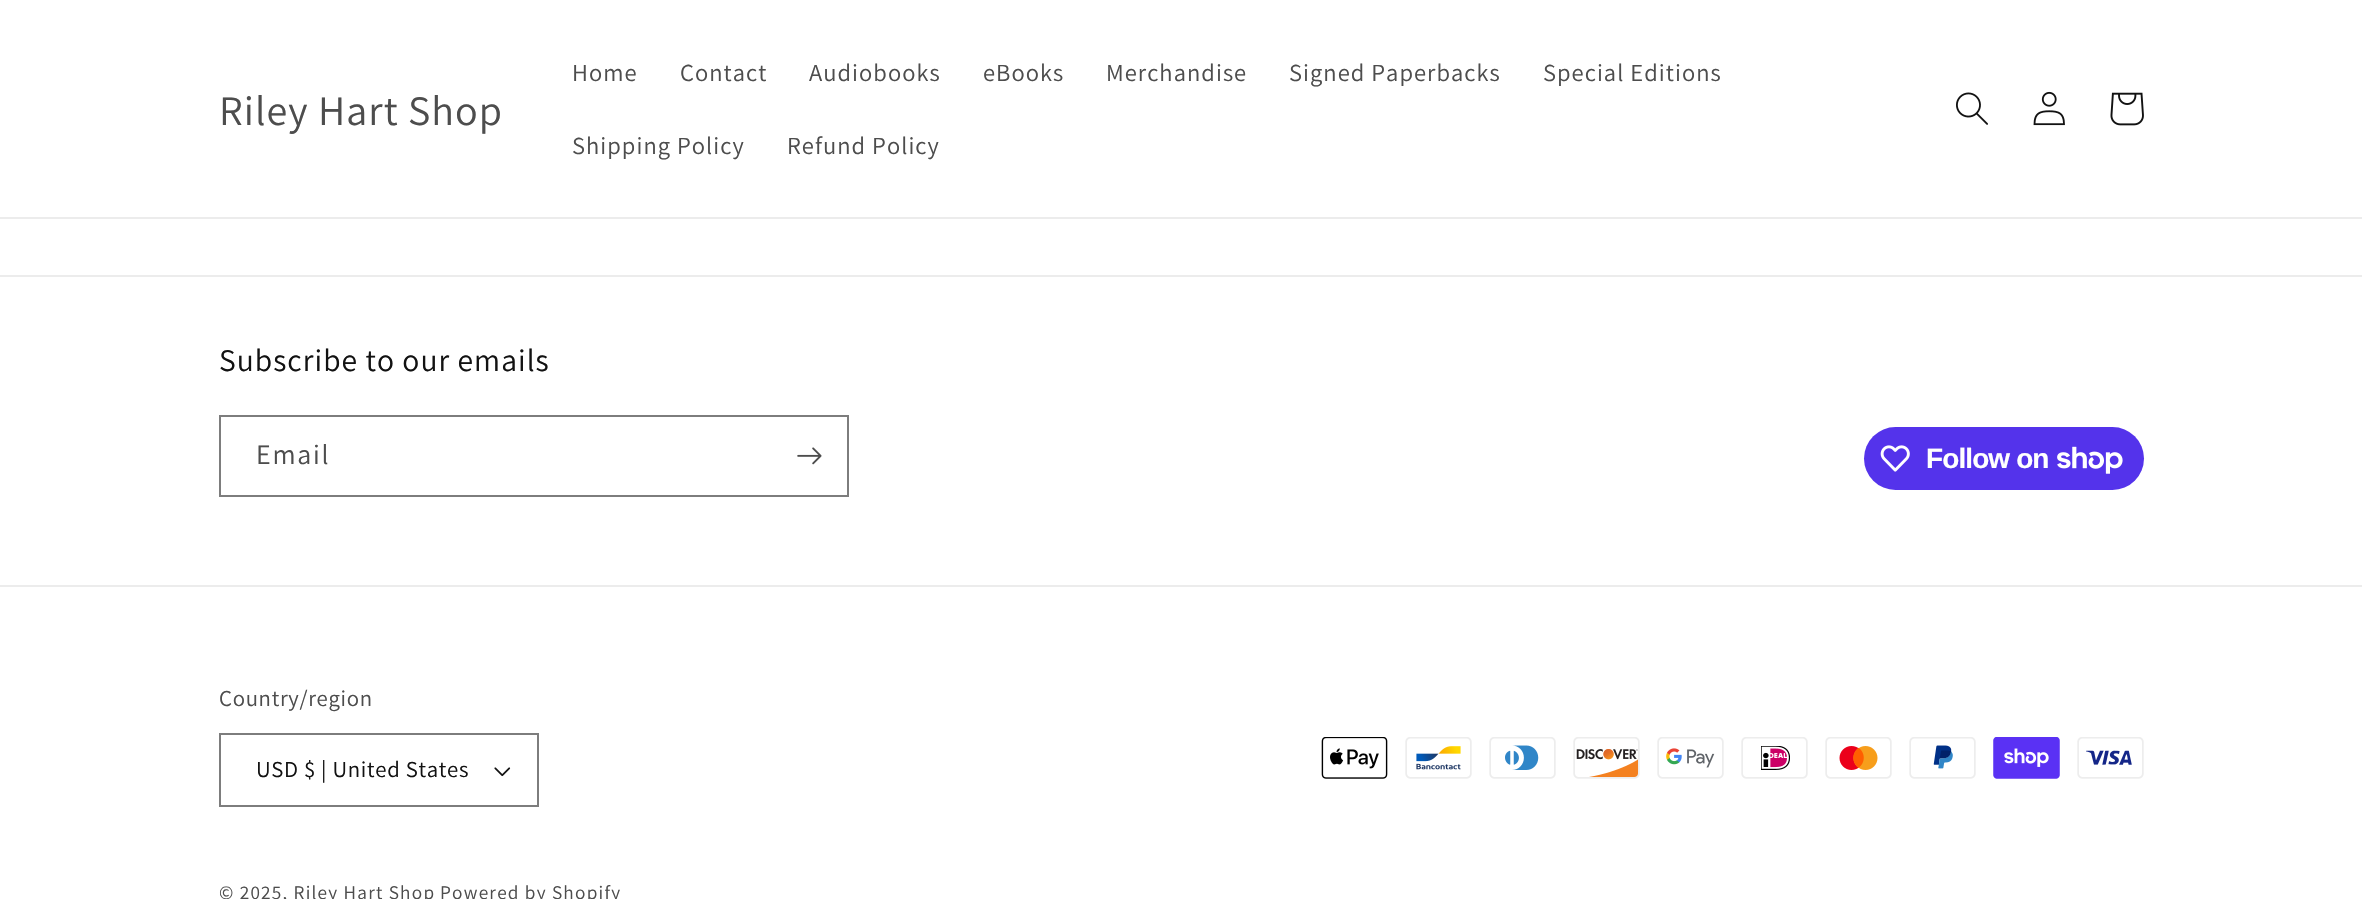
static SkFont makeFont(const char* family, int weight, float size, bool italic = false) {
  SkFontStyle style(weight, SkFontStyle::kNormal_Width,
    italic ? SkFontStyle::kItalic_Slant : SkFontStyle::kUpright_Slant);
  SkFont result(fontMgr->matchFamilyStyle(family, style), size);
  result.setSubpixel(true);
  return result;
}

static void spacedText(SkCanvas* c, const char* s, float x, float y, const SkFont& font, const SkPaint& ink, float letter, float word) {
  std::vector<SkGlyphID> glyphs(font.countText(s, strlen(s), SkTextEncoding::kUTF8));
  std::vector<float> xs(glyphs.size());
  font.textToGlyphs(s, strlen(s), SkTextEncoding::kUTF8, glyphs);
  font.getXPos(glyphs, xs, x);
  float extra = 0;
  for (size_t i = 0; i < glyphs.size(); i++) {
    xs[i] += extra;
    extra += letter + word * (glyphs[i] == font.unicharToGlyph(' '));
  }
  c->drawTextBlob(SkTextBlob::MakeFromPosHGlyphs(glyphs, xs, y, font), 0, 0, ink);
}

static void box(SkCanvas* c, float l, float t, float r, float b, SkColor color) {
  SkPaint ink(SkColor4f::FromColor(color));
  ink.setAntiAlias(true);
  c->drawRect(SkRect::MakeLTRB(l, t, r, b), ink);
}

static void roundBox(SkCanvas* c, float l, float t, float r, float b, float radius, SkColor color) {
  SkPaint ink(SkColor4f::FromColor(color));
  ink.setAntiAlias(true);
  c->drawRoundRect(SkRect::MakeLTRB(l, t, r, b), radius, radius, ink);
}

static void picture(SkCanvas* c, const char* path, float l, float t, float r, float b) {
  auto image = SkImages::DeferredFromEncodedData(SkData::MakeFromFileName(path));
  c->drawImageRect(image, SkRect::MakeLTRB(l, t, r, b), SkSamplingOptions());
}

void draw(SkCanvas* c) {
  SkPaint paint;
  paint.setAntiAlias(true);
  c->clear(0xffffffff);
  box(c, 0, 217, 2362, 219, 0xffececec);
  SkFont face1 = makeFont("Assistant", 400, 42);
  paint.setColor(0xff4d4d4d);
  spacedText(c, "Riley Hart Shop", 219, 125, face1, paint, 1.05f, 0);
  SkFont face2 = makeFont("Assistant", 400, 24.5f);
  spacedText(c, "Home", 572, 81, face2, paint, 1.05f, 0);
  spacedText(c, "Contact", 680, 81, face2, paint, 1.05f, 0);
  spacedText(c, "Audiobooks", 809, 81, face2, paint, 1.05f, 0);
  spacedText(c, "eBooks", 983, 81, face2, paint, 1.05f, 0);
  spacedText(c, "Merchandise", 1106, 81, face2, paint, 1.05f, 0);
  spacedText(c, "Signed Paperbacks", 1289, 81, face2, paint, 1.05f, 0);
  spacedText(c, "Special Editions", 1543, 81, face2, paint, 1.05f, 0);
  spacedText(c, "Shipping Policy", 572, 154, face2, paint, 1.05f, 0);
  spacedText(c, "Refund Policy", 787, 154, face2, paint, 1.05f, 0);
  picture(c, "img_01.png", 1956, 92, 1988, 125);
  picture(c, "img_02.png", 2033, 91, 2065, 126);
  picture(c, "img_03.png", 2110, 92, 2144, 126);
  box(c, 0, 275, 2362, 277, 0xffececec);
  SkFont face3 = makeFont("Assistant", 400, 31.5f);
  paint.setColor(0xff121212);
  spacedText(c, "Subscribe to our emails", 219, 371, face3, paint, 1.05f, 0);
  paint.setStyle(SkPaint::kStroke_Style);
  paint.setStrokeWidth(2);
  paint.setColor(0xff7d7d7d);
  c->drawRect(SkRect::MakeLTRB(220, 416, 848, 496), paint);
  SkFont face4 = makeFont("Assistant", 400, 28);
  paint.setStyle(SkPaint::kFill_Style);
  paint.setColor(0xff4d4d4d);
  spacedText(c, "Email", 256, 464, face4, paint, 1.75f, 0);
  picture(c, "img_04.png", 797, 447, 822, 465);
  roundBox(c, 1864, 427, 2144, 490, 31.5f, 0xff5433eb);
  picture(c, "img_05.png", 1880, 445, 1910, 472);
  SkFont face5 = makeFont("Liberation Sans", 700, 28);
  paint.setColor(0xffffffff);
  spacedText(c, "Follow on", 1926, 468, face5, paint, -0.9f, 0);
  picture(c, "img_06.png", 2057, 446, 2123, 474);
  box(c, 0, 585, 2362, 587, 0xffececec);
  SkFont face6 = makeFont("Assistant", 400, 22.75f);
  paint.setColor(0xff4d4d4d);
  spacedText(c, "Country/region", 219, 706, face6, paint, 0.7f, 0);
  picture(c, "img_07.png", 494, 767, 511, 777);
  paint.setStyle(SkPaint::kStroke_Style);
  paint.setColor(0xff7d7d7d);
  c->drawRect(SkRect::MakeLTRB(220, 734, 538, 806), paint);
  paint.setStyle(SkPaint::kFill_Style);
  paint.setColor(0xff121212);
  spacedText(c, "USD $ | United States", 256, 777, face6, paint, 0.7f, 0);
  picture(c, "img_08.png", 1321, 737, 1388, 779);
  picture(c, "img_09.png", 1405, 737, 1472, 779);
  picture(c, "img_10.png", 1489, 737, 1556, 779);
  picture(c, "img_11.png", 1573, 737, 1640, 779);
  picture(c, "img_12.png", 1657, 737, 1724, 779);
  picture(c, "img_13.png", 1741, 737, 1808, 779);
  picture(c, "img_14.png", 1825, 737, 1892, 779);
  picture(c, "img_15.png", 1909, 737, 1976, 779);
  picture(c, "img_16.png", 1993, 737, 2060, 779);
  picture(c, "img_17.png", 2077, 737, 2144, 779);
  SkFont face7 = makeFont("Assistant", 400, 19.25f);
  paint.setColor(0xff4d4d4d);
  spacedText(c, "© 2025, Riley Hart Shop", 219, 899, face7, paint, 1.25f, 0);
  spacedText(c, "Powered by Shopify", 440, 899, face7, paint, 1.25f, 0);
}
